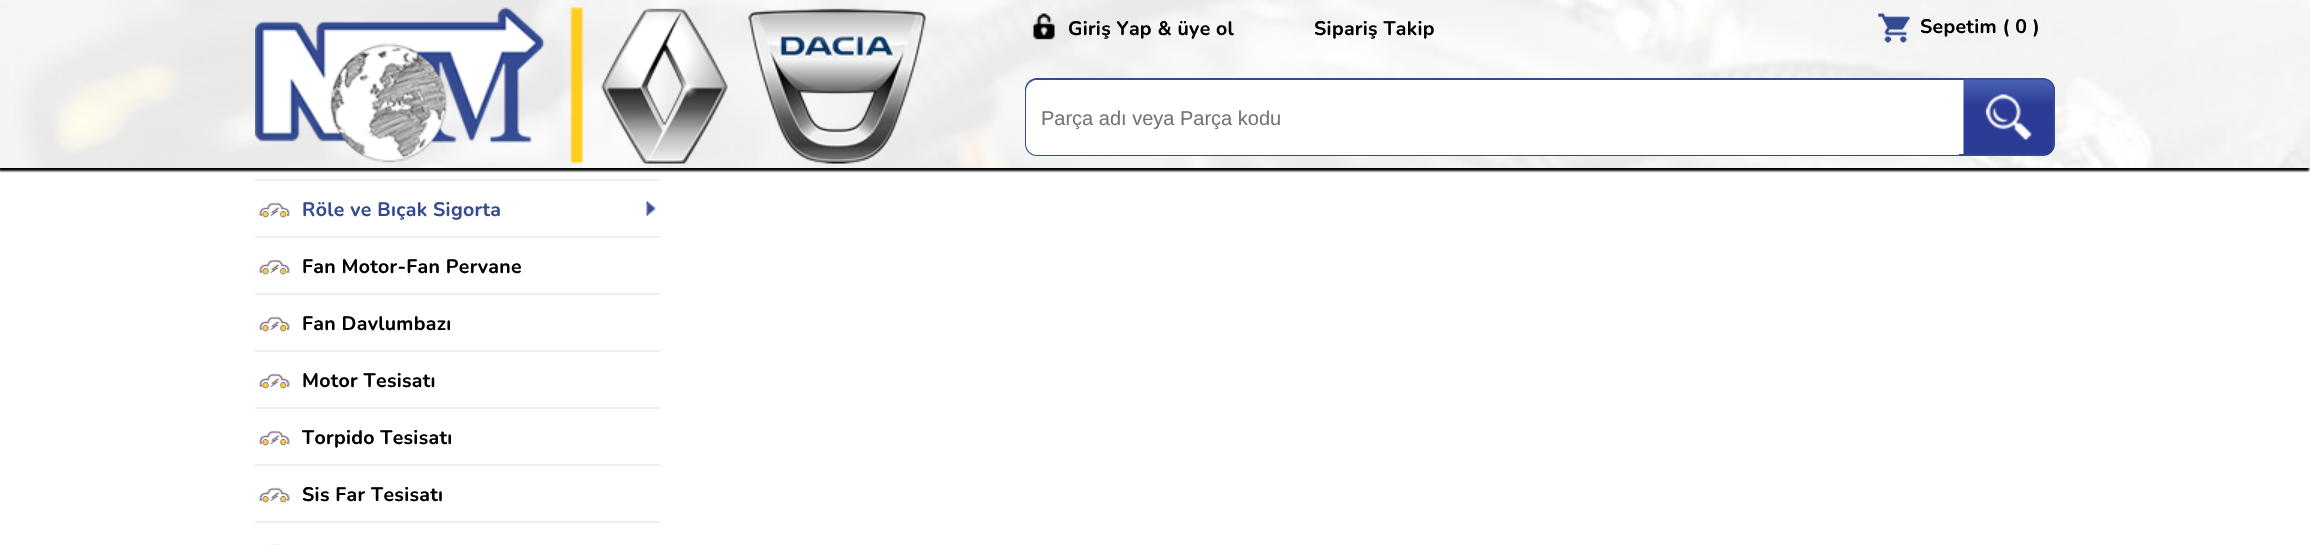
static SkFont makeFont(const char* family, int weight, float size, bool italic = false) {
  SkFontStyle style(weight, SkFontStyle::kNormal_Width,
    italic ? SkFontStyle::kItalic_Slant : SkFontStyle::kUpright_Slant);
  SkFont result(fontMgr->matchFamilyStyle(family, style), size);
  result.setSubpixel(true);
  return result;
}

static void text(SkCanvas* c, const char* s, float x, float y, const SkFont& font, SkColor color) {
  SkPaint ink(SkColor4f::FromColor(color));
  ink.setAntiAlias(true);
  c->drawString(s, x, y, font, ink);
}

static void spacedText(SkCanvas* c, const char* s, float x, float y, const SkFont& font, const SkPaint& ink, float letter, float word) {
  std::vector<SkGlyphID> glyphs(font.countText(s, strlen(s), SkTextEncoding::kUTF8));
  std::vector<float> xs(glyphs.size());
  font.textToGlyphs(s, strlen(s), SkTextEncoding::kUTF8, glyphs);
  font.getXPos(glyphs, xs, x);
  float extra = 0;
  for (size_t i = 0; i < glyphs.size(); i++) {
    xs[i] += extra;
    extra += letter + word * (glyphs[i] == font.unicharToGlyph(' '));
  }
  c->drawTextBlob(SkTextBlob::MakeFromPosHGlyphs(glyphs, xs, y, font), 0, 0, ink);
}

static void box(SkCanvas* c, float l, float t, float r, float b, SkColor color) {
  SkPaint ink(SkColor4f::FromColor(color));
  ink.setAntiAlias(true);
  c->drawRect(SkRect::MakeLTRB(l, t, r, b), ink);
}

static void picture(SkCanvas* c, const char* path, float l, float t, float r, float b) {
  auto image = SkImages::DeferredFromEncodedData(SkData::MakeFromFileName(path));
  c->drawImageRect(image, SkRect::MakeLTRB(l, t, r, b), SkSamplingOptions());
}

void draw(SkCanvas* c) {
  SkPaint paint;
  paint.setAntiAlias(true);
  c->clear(0xffffffff);
  paint.setColor(0xff000000);
  paint.setMaskFilter(SkMaskFilter::MakeBlur(kNormal_SkBlurStyle, 1));
  c->drawRect(SkRect::MakeLTRB(-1, 3, 2309, 171), paint);
  paint.setMaskFilter(nullptr);
  picture(c, "img_01.png", 0, 0, 2310, 168);
  picture(c, "img_02.png", 1033, 13, 1055, 40);
  SkFont face1 = makeFont("Nunito", 700, 19.5f);
  spacedText(c, "Giriş Yap & üye ol", 1068, 35, face1, paint, 0.3f, 0);
  spacedText(c, "Sipariş Takip", 1314, 35, face1, paint, 0.3f, 0);
  picture(c, "img_03.png", 1878, 13, 1910, 43);
  spacedText(c, "Sepetim ( 0 )", 1920, 33, face1, paint, 0.3f, 0);
  picture(c, "img_04.png", 255, 7, 926, 164);
  paint.setColor(0xffffffff);
  c->drawRoundRect(SkRect::MakeLTRB(1026, 79, 2054, 155), 11, 11, paint);
  paint.setStyle(SkPaint::kStroke_Style);
  paint.setStrokeWidth(2);
  paint.setColor(0xff344b91);
  c->drawRoundRect(SkRect::MakeLTRB(1026, 79, 2054, 155), 11, 11, paint);
  paint.setStyle(SkPaint::kFill_Style);
  paint.setColor(0xffffffff);
  c->drawPath(SkPathBuilder().moveTo(1037, 80).lineTo(1959, 80).lineTo(1959, 155).lineTo(1037, 155).cubicTo(1031, 155, 1026, 150, 1026, 144).lineTo(1026, 91).cubicTo(1026, 85, 1031, 80, 1037, 80).close().detach(), paint);
  c->save();
  c->clipRect(SkRect::MakeLTRB(1041, 107, 1956, 129));
  SkFont face2 = makeFont("Liberation Sans", 400, 20);
  text(c, "Parça adı veya Parça kodu", 1041, 125, face2, 0xff757575);
  c->restore();
  paint.setColor(0xff344b91);
  c->drawPath(SkPathBuilder().moveTo(1964, 80).lineTo(2043, 80).cubicTo(2049, 80, 2054, 85, 2054, 91).lineTo(2054, 144).cubicTo(2054, 150, 2049, 155, 2043, 155).lineTo(1964, 155).close().detach(), paint);
  picture(c, "img_05.png", 1963, 79, 2054, 155);
  box(c, 255, 179, 660, 181, 0xfff0f0f0);
  box(c, 255, 236, 660, 238, 0xfff0f0f0);
  picture(c, "img_06.png", 259, 202, 290, 218);
  picture(c, "img_07.png", 646, 201, 656, 216);
  spacedText(c, "Röle ve Bıçak Sigorta", 302, 216, face1, paint, 0.3f, 0);
  box(c, 255, 293, 660, 295, 0xfff0f0f0);
  picture(c, "img_08.png", 259, 259, 290, 275);
  paint.setColor(0xff000000);
  spacedText(c, "Fan Motor-Fan Pervane", 302, 273, face1, paint, 0.3f, 0);
  box(c, 255, 350, 660, 352, 0xfff0f0f0);
  picture(c, "img_06.png", 259, 316, 290, 332);
  spacedText(c, "Fan Davlumbazı", 302, 330, face1, paint, 0.3f, 0);
  box(c, 255, 407, 660, 409, 0xfff0f0f0);
  picture(c, "img_06.png", 259, 373, 290, 389);
  spacedText(c, "Motor Tesisatı", 302, 387, face1, paint, 0.3f, 0);
  box(c, 255, 464, 660, 466, 0xfff0f0f0);
  picture(c, "img_09.png", 259, 430, 290, 446);
  spacedText(c, "Torpido Tesisatı", 302, 444, face1, paint, 0.3f, 0);
  box(c, 255, 521, 660, 523, 0xfff0f0f0);
  picture(c, "img_09.png", 259, 487, 290, 503);
  spacedText(c, "Sis Far Tesisatı", 302, 501, face1, paint, 0.3f, 0);
  picture(c, "img_10.png", 271, 544, 279, 545);
}
